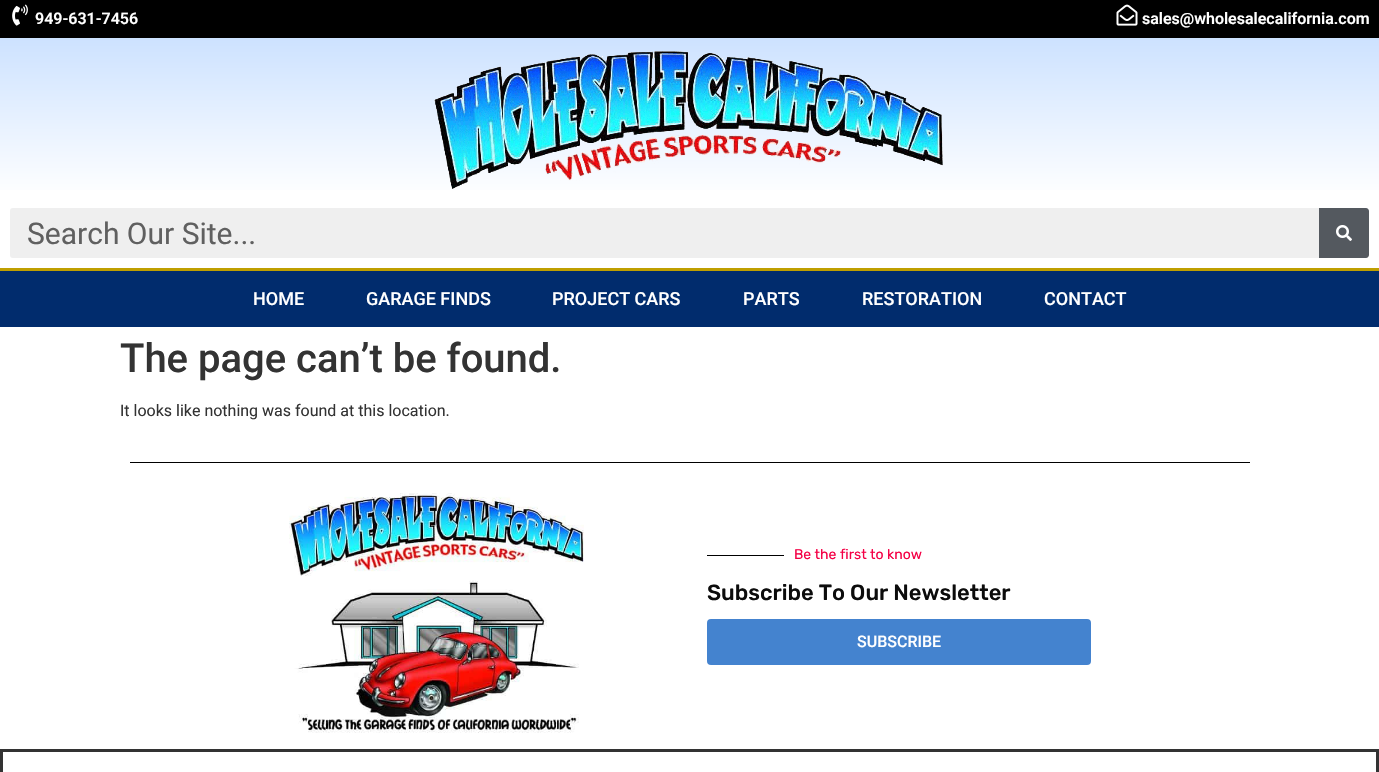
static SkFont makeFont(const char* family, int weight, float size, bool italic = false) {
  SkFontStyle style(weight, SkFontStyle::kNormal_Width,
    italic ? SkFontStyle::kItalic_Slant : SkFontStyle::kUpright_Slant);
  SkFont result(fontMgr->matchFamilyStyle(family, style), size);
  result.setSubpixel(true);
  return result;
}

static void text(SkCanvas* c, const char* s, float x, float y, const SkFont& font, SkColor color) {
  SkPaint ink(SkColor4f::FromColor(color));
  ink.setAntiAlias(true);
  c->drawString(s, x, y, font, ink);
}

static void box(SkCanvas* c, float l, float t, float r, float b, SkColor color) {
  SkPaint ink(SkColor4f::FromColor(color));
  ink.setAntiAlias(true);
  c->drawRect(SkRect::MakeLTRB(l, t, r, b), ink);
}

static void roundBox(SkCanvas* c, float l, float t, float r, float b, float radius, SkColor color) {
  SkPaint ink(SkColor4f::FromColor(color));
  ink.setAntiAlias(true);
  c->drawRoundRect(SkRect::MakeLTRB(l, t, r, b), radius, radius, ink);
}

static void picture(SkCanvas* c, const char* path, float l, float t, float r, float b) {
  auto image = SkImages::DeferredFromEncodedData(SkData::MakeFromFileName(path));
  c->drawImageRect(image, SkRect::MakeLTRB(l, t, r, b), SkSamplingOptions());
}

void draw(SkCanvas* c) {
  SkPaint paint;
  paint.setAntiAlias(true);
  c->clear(0xffffffff);
  box(c, 0, 0, 1379, 38, 0xff000000);
  picture(c, "img_01.png", 12, 4, 28, 26);
  SkFont face1 = makeFont("Roboto", 600, 16);
  text(c, "949-631-7456", 35, 24, face1, 0xffffffff);
  picture(c, "img_02.png", 1116, 4, 1138, 26);
  text(c, "sales@wholesalecalifornia.com", 1142, 24, face1, 0xffffffff);
  {
    const SkColor colors[] = {0xffcde2ff, 0xffffffff};
    const float stops[] = {0, 1};
    const SkPoint ends[] = {{690, 38}, {690, 198}};
    paint.setShader(SkGradientShader::MakeLinear(ends, colors, stops, 2, SkTileMode::kClamp));
    paint.setAlpha(255);
  }
  c->drawRect(SkRect::MakeLTRB(0, 38, 1379, 190), paint);
  picture(c, "img_03.png", 434, 51, 943, 189);
  roundBox(c, 10, 208, 1369, 258, 3, 0xffefefef);
  SkFont face2 = makeFont("Roboto", 400, 30);
  text(c, "Search Our Site...", 27, 244, face2, 0xff606060);
  paint.setShader(nullptr);
  paint.setColor(0xff54595f);
  c->drawPath(SkPathBuilder().moveTo(1319, 208).lineTo(1366, 208).cubicTo(1367.5f, 208, 1369, 209.5f, 1369, 211).lineTo(1369, 255).cubicTo(1369, 256.5f, 1367.5f, 258, 1366, 258).lineTo(1319, 258).close().detach(), paint);
  picture(c, "img_04.png", 1336, 225, 1352, 241);
  box(c, 0, 271, 1379, 327, 0xff012c6d);
  box(c, 0, 268, 1379, 271, 0xffbf9f00);
  SkFont face3 = makeFont("Roboto", 500, 18);
  text(c, "HOME", 253, 305, face3, 0xffffffff);
  text(c, "GARAGE FINDS", 366, 305, face3, 0xffffffff);
  text(c, "PROJECT CARS", 552, 305, face3, 0xffffffff);
  text(c, "PARTS", 743, 305, face3, 0xffffffff);
  text(c, "RESTORATION", 862, 305, face3, 0xffffffff);
  text(c, "CONTACT", 1044, 305, face3, 0xffffffff);
  SkFont face4 = makeFont("Roboto", 500, 40);
  text(c, "The page can’t be found.", 120, 372, face4, 0xff333333);
  SkFont face5 = makeFont("Roboto", 400, 16);
  text(c, "It looks like nothing was found at this location.", 120, 416, face5, 0xff333333);
  box(c, 130, 462, 1250, 463, 0xff000000);
  picture(c, "img_05.png", 289, 493, 584, 733);
  box(c, 707, 555, 784, 556, 0xff000000);
  SkFont face6 = makeFont("Rubik", 400, 14);
  text(c, "Be the first to know", 794, 559, face6, 0xfff40045);
  SkFont face7 = makeFont("Rubik", 500, 22);
  text(c, "Subscribe To Our Newsletter", 707, 600, face7, 0xff0c0c0c);
  roundBox(c, 707, 619, 1091, 665, 4, 0xff4483cf);
  SkFont face8 = makeFont("Roboto", 500, 16);
  text(c, "SUBSCRIBE", 857, 647, face8, 0xffffffff);
  paint.setStyle(SkPaint::kStroke_Style);
  paint.setStrokeWidth(3);
  paint.setColor(0xff333333);
  c->drawRect(SkRect::MakeLTRB(1.5f, 750.5f, 1377.5f, 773.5f), paint);
}
